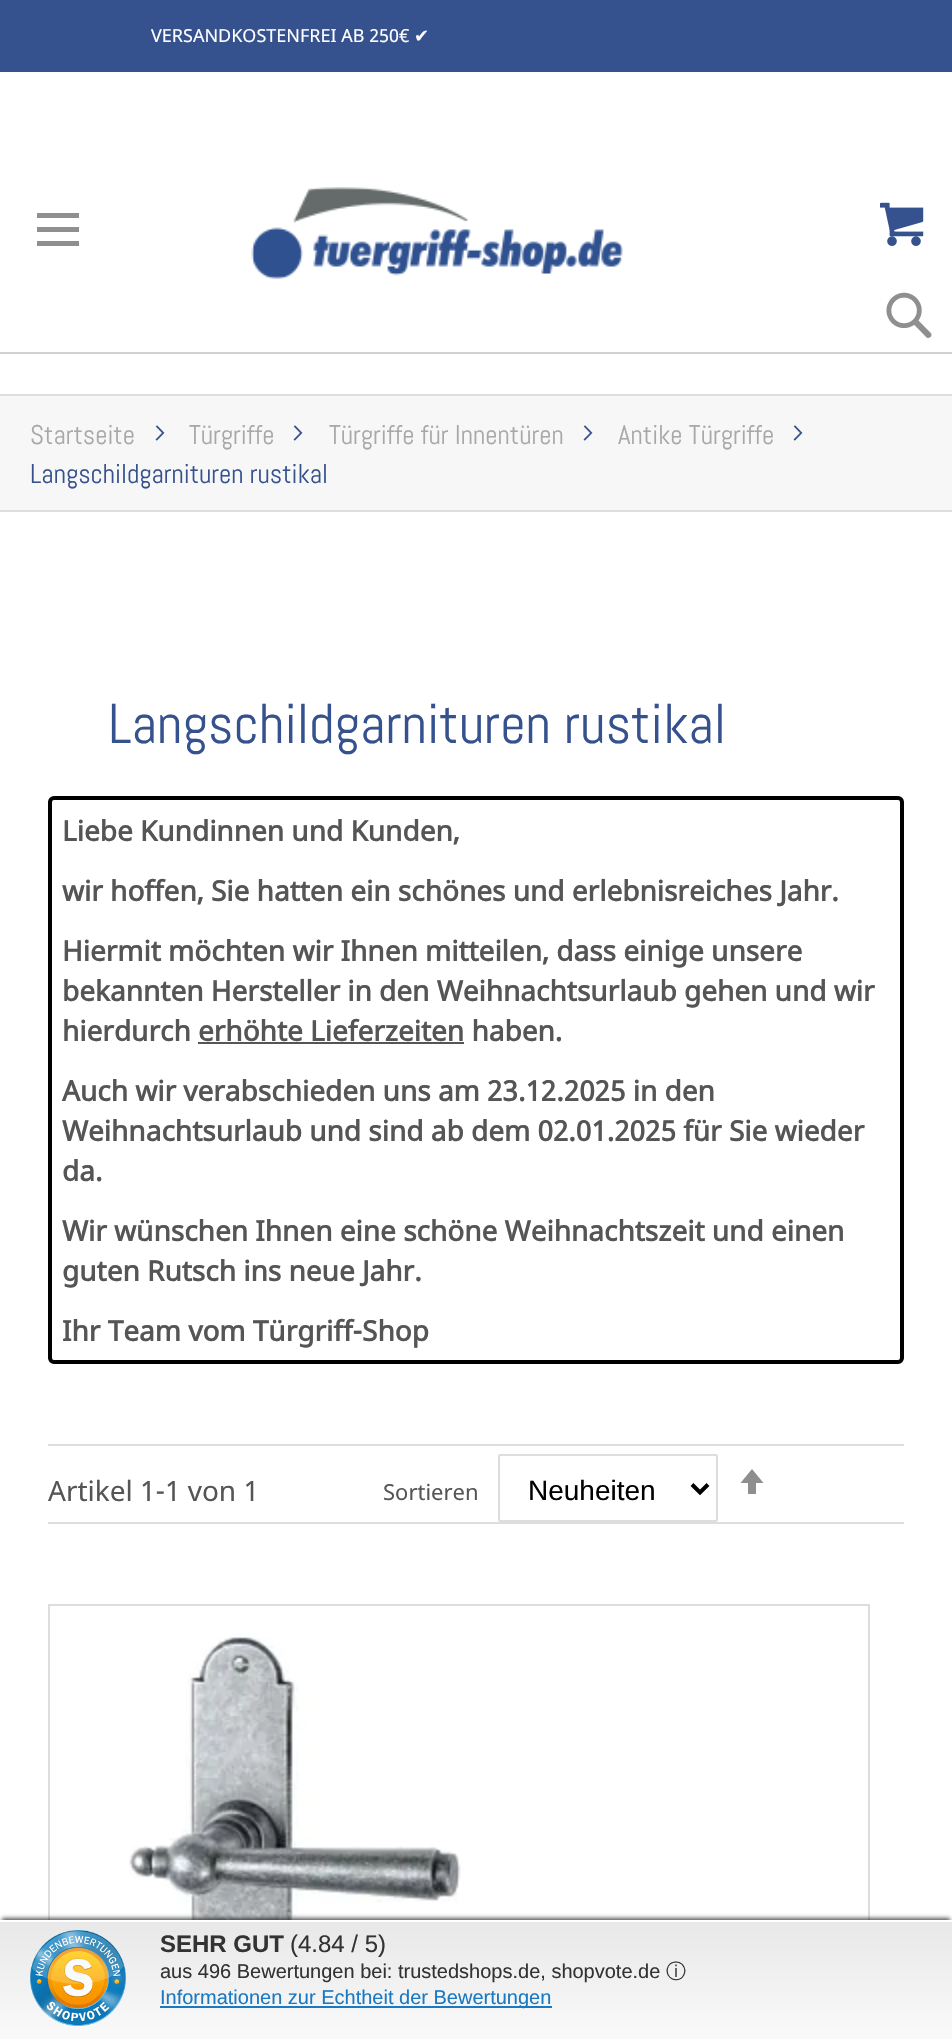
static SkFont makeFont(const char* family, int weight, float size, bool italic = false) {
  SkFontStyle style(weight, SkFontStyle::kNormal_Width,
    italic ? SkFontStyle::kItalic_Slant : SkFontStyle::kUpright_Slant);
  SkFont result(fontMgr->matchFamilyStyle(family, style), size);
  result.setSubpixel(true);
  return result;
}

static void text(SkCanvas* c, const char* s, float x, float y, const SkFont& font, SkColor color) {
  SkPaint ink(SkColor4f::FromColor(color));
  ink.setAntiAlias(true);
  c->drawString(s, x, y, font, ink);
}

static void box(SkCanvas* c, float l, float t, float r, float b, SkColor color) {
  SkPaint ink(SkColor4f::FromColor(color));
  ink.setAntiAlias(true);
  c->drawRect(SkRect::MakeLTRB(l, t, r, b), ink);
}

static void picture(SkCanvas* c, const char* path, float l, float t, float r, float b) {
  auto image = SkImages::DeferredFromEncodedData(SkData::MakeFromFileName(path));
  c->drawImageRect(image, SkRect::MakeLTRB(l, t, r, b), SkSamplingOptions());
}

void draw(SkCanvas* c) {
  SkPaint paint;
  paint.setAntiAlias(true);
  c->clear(0xffffffff);
  box(c, 0, 0, 952, 72, 0xff35518e);
  SkFont face1 = makeFont("Noto Sans", 400, 18);
  text(c, "VERSANDKOSTENFREI AB 250€", 151, 42, face1, 0xffffffff);
  SkFont face2 = makeFont("DejaVu Sans", 400, 18);
  text(c, "✔", 414, 42, face2, 0xffffffff);
  box(c, 0, 352, 952, 354, 0xffd1d1d1);
  paint.setColor(0xff8f8f8f);
  c->drawPath(SkPathBuilder().moveTo(37, 213).lineTo(37, 218).lineTo(79, 218).lineTo(79, 213).close().moveTo(37, 232).lineTo(79, 232).lineTo(79, 227).lineTo(37, 227).close().moveTo(37, 246).lineTo(79, 246).lineTo(79, 241).lineTo(37, 241).close().detach(), paint);
  picture(c, "img_01.png", 251, 187, 623, 280);
  picture(c, "img_02.png", 880, 202, 924, 246);
  picture(c, "img_03.png", 886, 292, 932, 338);
  box(c, 0, 396, 952, 510, 0xfff7f7f7);
  box(c, 0, 394, 952, 396, 0xffdddddd);
  box(c, 0, 510, 952, 512, 0xffdddddd);
  SkFont face3 = makeFont("Abel", 400, 27);
  text(c, "Startseite", 30, 444, face3, 0xffa8a8a8);
  picture(c, "img_04.png", 155, 425, 165, 441);
  text(c, "Türgriffe", 189, 444, face3, 0xffa8a8a8);
  picture(c, "img_04.png", 293, 425, 303, 441);
  text(c, "Türgriffe für Innentüren", 329, 444, face3, 0xffa8a8a8);
  picture(c, "img_04.png", 583, 425, 593, 441);
  text(c, "Antike Türgriffe", 618, 444, face3, 0xffa8a8a8);
  picture(c, "img_04.png", 793, 425, 803, 441);
  text(c, "Langschildgarnituren rustikal", 30, 483, face3, 0xff35518e);
  SkFont face4 = makeFont("Abel", 400, 56);
  text(c, "Langschildgarnituren rustikal", 108, 743, face4, 0xff35518e);
  paint.setStyle(SkPaint::kStroke_Style);
  paint.setStrokeWidth(4);
  paint.setColor(0xff000000);
  c->drawRoundRect(SkRect::MakeLTRB(50, 798, 902, 1362), 4, 4, paint);
  SkFont face5 = makeFont("Noto Sans", 700, 28);
  text(c, "Liebe Kundinnen und Kunden,", 62, 841, face5, 0xff555555);
  text(c, "wir hoffen, Sie hatten ein schönes und erlebnisreiches Jahr.", 62, 901, face5, 0xff555555);
  text(c, "Hiermit möchten wir Ihnen mitteilen, dass einige unsere", 62, 961, face5, 0xff555555);
  text(c, "bekannten Hersteller in den Weihnachtsurlaub gehen und wir", 62, 1001, face5, 0xff555555);
  text(c, "hierdurch erhöhte Lieferzeiten haben.", 62, 1041, face5, 0xff555555);
  box(c, 198, 1042, 464, 1044, 0xff555555);
  text(c, "Auch wir verabschieden uns am 23.12.2025 in den", 62, 1101, face5, 0xff555555);
  text(c, "Weihnachtsurlaub und sind ab dem 02.01.2025 für Sie wieder", 62, 1141, face5, 0xff555555);
  text(c, "da.", 62, 1181, face5, 0xff555555);
  text(c, "Wir wünschen Ihnen eine schöne Weihnachtszeit und einen", 62, 1241, face5, 0xff555555);
  text(c, "guten Rutsch ins neue Jahr.", 62, 1281, face5, 0xff555555);
  text(c, "Ihr Team vom Türgriff-Shop", 62, 1341, face5, 0xff555555);
  box(c, 48, 1444, 904, 1446, 0xffdddddd);
  box(c, 48, 1522, 904, 1524, 0xffdddddd);
  SkFont face6 = makeFont("Noto Sans", 400, 28);
  text(c, "Artikel 1-1 von 1", 48, 1501, face6, 0xff555555);
  SkFont face7 = makeFont("Noto Sans", 400, 22);
  text(c, "Sortieren", 383, 1500, face7, 0xff555555);
  paint.setStrokeWidth(2);
  paint.setColor(0xffdddddd);
  c->drawRoundRect(SkRect::MakeLTRB(499, 1455, 717, 1521), 1, 1, paint);
  paint.setStrokeWidth(4);
  paint.setColor(0xff000000);
  c->drawPath(SkPathBuilder().moveTo(692, 1484.5f).lineTo(700, 1492.5f).lineTo(708, 1484.5f).detach(), paint);
  SkFont face8 = makeFont("Liberation Sans", 400, 28);
  text(c, "Neuheiten", 528, 1500, face8, 0xff000000);
  paint.setStyle(SkPaint::kFill_Style);
  paint.setColor(0xff8f8f8f);
  c->drawPath(SkPathBuilder().moveTo(752, 1469).lineTo(740.5f, 1483).lineTo(748, 1483).lineTo(748, 1494).lineTo(756, 1494).lineTo(756, 1483).lineTo(763.5f, 1483).close().detach(), paint);
  paint.setStyle(SkPaint::kStroke_Style);
  paint.setStrokeWidth(2);
  paint.setColor(0xffdddddd);
  c->drawRect(SkRect::MakeLTRB(49, 1605, 869, 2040), paint);
  picture(c, "img_05.png", 129, 1633, 461, 1920);
  paint.setStyle(SkPaint::kFill_Style);
  paint.setColor(0xa6000000);
  paint.setMaskFilter(SkMaskFilter::MakeBlur(kNormal_SkBlurStyle, 2));
  c->drawRect(SkRect::MakeLTRB(2, 1918, 950, 2034), paint);
  paint.setMaskFilter(nullptr);
  {
    const SkColor colors[] = {0xfff0f0f0, 0xffe8e8e8, 0xfffafafa};
    const float stops[] = {0, 0, 1};
    const SkPoint ends[] = {{476, 1922}, {476, 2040}};
    paint.setShader(SkGradientShader::MakeLinear(ends, colors, stops, 3, SkTileMode::kClamp));
    paint.setAlpha(255);
  }
  c->drawRect(SkRect::MakeLTRB(0, 1922, 952, 2039), paint);
  box(c, 0, 1920, 952, 1922, 0xffffffff);
  picture(c, "img_06.png", 30, 1930, 126, 2026);
  SkFont face9 = makeFont("Liberation Sans", 700, 24);
  text(c, "SEHR GUT", 160, 1952, face9, 0xff333333);
  SkFont face10 = makeFont("Liberation Sans", 400, 24);
  text(c, "(4.84 / 5)", 290, 1952, face10, 0xff333333);
  SkFont face11 = makeFont("Liberation Sans", 400, 20);
  text(c, "aus 496 Bewertungen bei: trustedshops.de, shopvote.de", 160, 1978, face11, 0xff333333);
  SkFont face12 = makeFont("WenQuanYi Zen Hei", 500, 20);
  text(c, "ⓘ", 666, 1978, face12, 0xff333333);
  box(c, 160, 2006, 552, 2008, 0xff1979c3);
  text(c, "Informationen zur Echtheit der Bewertungen", 160, 2004, face11, 0xff1979c3);
}
